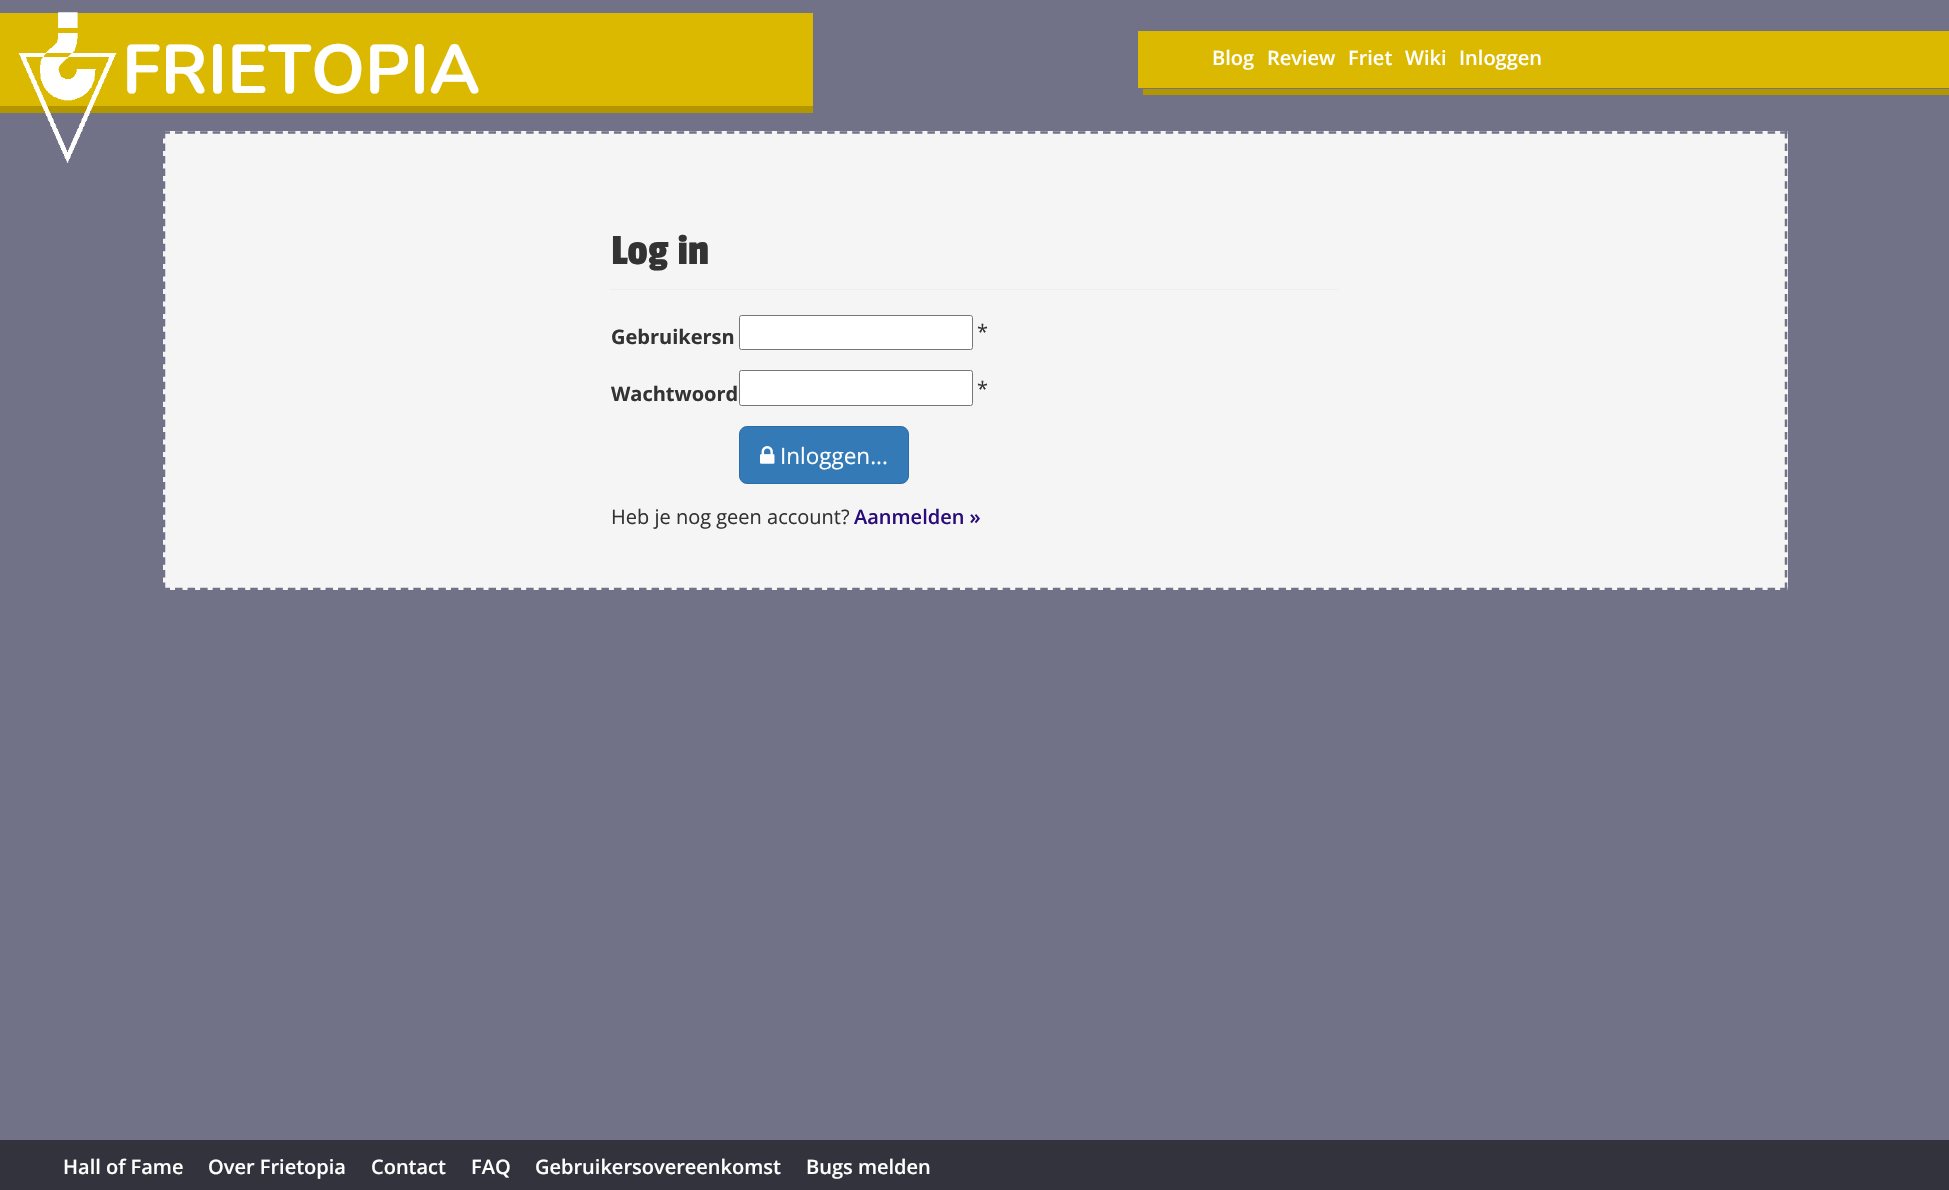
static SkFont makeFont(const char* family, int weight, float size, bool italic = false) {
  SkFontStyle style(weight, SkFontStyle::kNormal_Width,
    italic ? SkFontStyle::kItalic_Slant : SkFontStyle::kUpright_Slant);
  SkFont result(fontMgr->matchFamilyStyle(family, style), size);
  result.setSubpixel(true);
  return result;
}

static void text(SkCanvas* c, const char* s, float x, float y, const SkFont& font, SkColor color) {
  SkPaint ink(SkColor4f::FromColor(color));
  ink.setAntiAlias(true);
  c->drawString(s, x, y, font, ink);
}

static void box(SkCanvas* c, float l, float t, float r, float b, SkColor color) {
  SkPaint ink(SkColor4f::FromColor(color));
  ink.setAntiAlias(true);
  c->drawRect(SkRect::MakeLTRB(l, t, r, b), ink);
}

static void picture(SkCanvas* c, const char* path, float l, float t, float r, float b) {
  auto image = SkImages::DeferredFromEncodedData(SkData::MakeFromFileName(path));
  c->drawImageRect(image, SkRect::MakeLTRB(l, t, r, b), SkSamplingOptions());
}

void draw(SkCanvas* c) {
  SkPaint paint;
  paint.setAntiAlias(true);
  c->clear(0xff717288);
  box(c, 0, 13, 813, 106, 0xffdbb900);
  box(c, 0, 106, 813, 113, 0xffb29600);
  picture(c, "img_01.png", 18, 12, 117, 163);
  picture(c, "img_02.png", 18, 12, 117, 163);
  SkFont face1 = makeFont("Nunito", 700, 68.75f);
  text(c, "FRIETOPIA", 122, 93, face1, 0xffffffff);
  box(c, 1138, 31, 1949, 88, 0xffdbb900);
  SkFont face2 = makeFont("Open Sans", 600, 20);
  text(c, "Blog", 1212, 65, face2, 0xffffffff);
  text(c, "Review", 1267, 65, face2, 0xffffffff);
  text(c, "Friet", 1348, 65, face2, 0xffffffff);
  text(c, "Wiki", 1405, 65, face2, 0xffffffff);
  text(c, "Inloggen", 1459, 65, face2, 0xffffffff);
  box(c, 1143, 89, 1949, 95, 0xffb29600);
  box(c, 163, 131, 1788, 590, 0xfff5f5f5);
  paint.setStyle(SkPaint::kStroke_Style);
  paint.setStrokeWidth(2.5f);
  paint.setColor(0xff717288);
  paint.setPathEffect(SkDashPathEffect::Make({{7.5f, 5.04f}}, 0));
  c->drawPath(SkPathBuilder().moveTo(162.5f, 132.5f).lineTo(1787.5f, 132.5f).detach(), paint);
  paint.setPathEffect(nullptr);
  paint.setPathEffect(SkDashPathEffect::Make({{7.5f, 5.04f}}, 0));
  c->drawPath(SkPathBuilder().moveTo(1786, 131).lineTo(1786, 590).detach(), paint);
  paint.setPathEffect(nullptr);
  paint.setPathEffect(SkDashPathEffect::Make({{7.5f, 5.04f}}, 0));
  c->drawPath(SkPathBuilder().moveTo(162.5f, 589).lineTo(1787.5f, 589).detach(), paint);
  paint.setPathEffect(nullptr);
  paint.setPathEffect(SkDashPathEffect::Make({{7.5f, 5.04f}}, 0));
  c->drawPath(SkPathBuilder().moveTo(164, 131).lineTo(164, 590).detach(), paint);
  paint.setPathEffect(nullptr);
  box(c, 610, 289, 1339, 290, 0xffeeeeee);
  SkFont face3 = makeFont("Passion One", 400, 45);
  text(c, "Log in", 611, 264, face3, 0xff333333);
  SkFont face4 = makeFont("Open Sans", 700, 20);
  text(c, "Gebruikersn", 611, 344, face4, 0xff333333);
  paint.setStyle(SkPaint::kFill_Style);
  paint.setColor(0xffffffff);
  c->drawRoundRect(SkRect::MakeLTRB(739.5f, 315.5f, 972.5f, 349.5f), 2, 2, paint);
  paint.setStyle(SkPaint::kStroke_Style);
  paint.setStrokeWidth(1);
  paint.setColor(0xff767676);
  c->drawRoundRect(SkRect::MakeLTRB(739.5f, 315.5f, 972.5f, 349.5f), 2, 2, paint);
  SkFont face5 = makeFont("Open Sans", 400, 20);
  text(c, "*", 977, 339, face5, 0xff333333);
  text(c, "Wachtwoord", 611, 401, face4, 0xff333333);
  paint.setStyle(SkPaint::kFill_Style);
  paint.setColor(0xffffffff);
  c->drawRoundRect(SkRect::MakeLTRB(739.5f, 370.5f, 972.5f, 405.5f), 2, 2, paint);
  paint.setStyle(SkPaint::kStroke_Style);
  paint.setColor(0xff767676);
  c->drawRoundRect(SkRect::MakeLTRB(739.5f, 370.5f, 972.5f, 405.5f), 2, 2, paint);
  text(c, "*", 977, 396, face5, 0xff333333);
  paint.setStyle(SkPaint::kFill_Style);
  paint.setColor(0xff337ab7);
  c->drawRoundRect(SkRect::MakeLTRB(739.5f, 426.5f, 908.5f, 483.5f), 7.5f, 7.5f, paint);
  paint.setStyle(SkPaint::kStroke_Style);
  paint.setColor(0xff2e6da4);
  c->drawRoundRect(SkRect::MakeLTRB(739.5f, 426.5f, 908.5f, 483.5f), 7.5f, 7.5f, paint);
  picture(c, "img_03.png", 760, 446, 775, 464);
  SkFont face6 = makeFont("Open Sans", 400, 22.5f);
  text(c, "Inloggen...", 780, 464, face6, 0xffffffff);
  text(c, "Heb je nog geen account?", 611, 524, face5, 0xff333333);
  text(c, "Aanmelden »", 854, 524, face2, 0xff2a0b7a);
  box(c, 0, 1140, 1949, 1190, 0xff33333d);
  text(c, "Hall of Fame", 63, 1174, face2, 0xffffffff);
  text(c, "Over Frietopia", 208, 1174, face2, 0xffffffff);
  text(c, "Contact", 371, 1174, face2, 0xffffffff);
  text(c, "FAQ", 471, 1174, face2, 0xffffffff);
  text(c, "Gebruikersovereenkomst", 535, 1174, face2, 0xffffffff);
  text(c, "Bugs melden", 806, 1174, face2, 0xffffffff);
}
